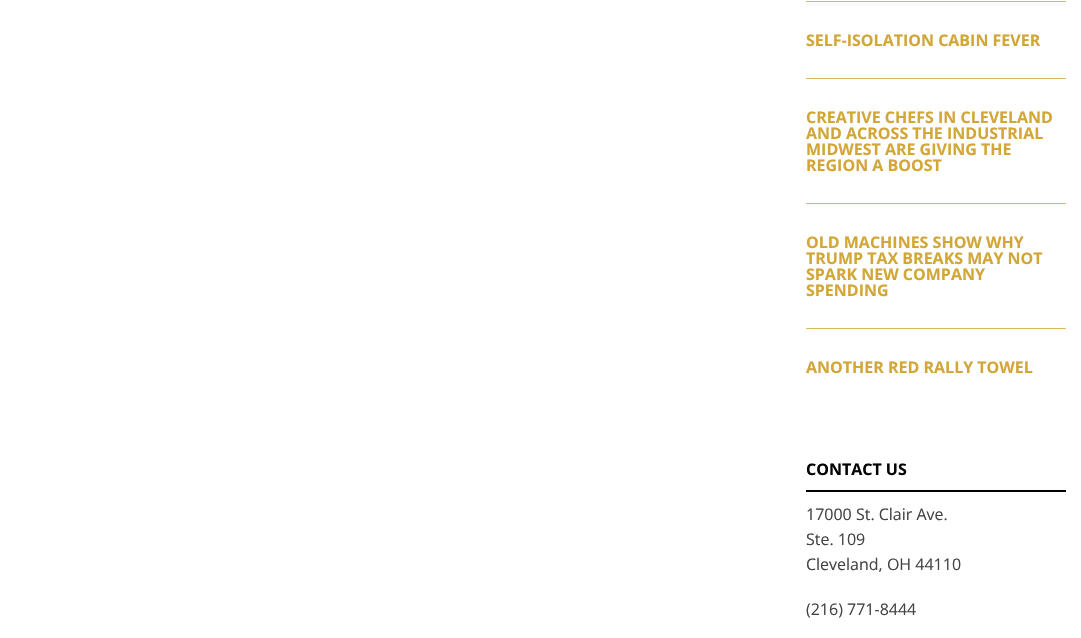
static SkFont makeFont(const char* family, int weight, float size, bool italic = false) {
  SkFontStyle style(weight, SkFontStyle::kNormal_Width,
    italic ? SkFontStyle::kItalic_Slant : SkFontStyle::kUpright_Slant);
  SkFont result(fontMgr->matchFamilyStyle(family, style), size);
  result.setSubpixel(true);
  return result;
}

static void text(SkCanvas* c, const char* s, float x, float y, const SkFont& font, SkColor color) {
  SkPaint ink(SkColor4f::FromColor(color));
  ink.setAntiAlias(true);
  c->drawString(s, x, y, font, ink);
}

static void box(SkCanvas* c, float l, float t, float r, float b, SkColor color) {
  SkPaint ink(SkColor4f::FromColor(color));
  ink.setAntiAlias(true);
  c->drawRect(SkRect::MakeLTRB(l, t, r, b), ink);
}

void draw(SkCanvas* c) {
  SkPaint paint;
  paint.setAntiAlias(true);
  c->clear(0xffffffff);
  box(c, 806, 1, 1066, 2, 0xffdbb961);
  box(c, 806, 78, 1066, 79, 0xffdbb961);
  SkFont face1 = makeFont("Open Sans", 700, 16);
  text(c, "SELF-ISOLATION CABIN FEVER", 806, 46, face1, 0xffd2a637);
  box(c, 806, 203, 1066, 204, 0xffdbb961);
  text(c, "CREATIVE CHEFS IN CLEVELAND", 806, 123, face1, 0xffd2a637);
  text(c, "AND ACROSS THE INDUSTRIAL", 806, 139, face1, 0xffd2a637);
  text(c, "MIDWEST ARE GIVING THE", 806, 155, face1, 0xffd2a637);
  text(c, "REGION A BOOST", 806, 171, face1, 0xffd2a637);
  box(c, 806, 328, 1066, 329, 0xffdbb961);
  text(c, "OLD MACHINES SHOW WHY", 806, 248, face1, 0xffd2a637);
  text(c, "TRUMP TAX BREAKS MAY NOT", 806, 264, face1, 0xffd2a637);
  text(c, "SPARK NEW COMPANY", 806, 280, face1, 0xffd2a637);
  text(c, "SPENDING", 806, 296, face1, 0xffd2a637);
  text(c, "ANOTHER RED RALLY TOWEL", 806, 373, face1, 0xffd2a637);
  box(c, 806, 490, 1066, 492, 0xff000000);
  text(c, "CONTACT US", 806, 475, face1, 0xff040404);
  SkFont face2 = makeFont("Open Sans", 400, 16);
  text(c, "17000 St. Clair Ave.", 806, 520, face2, 0xff434343);
  text(c, "Ste. 109", 806, 545, face2, 0xff434343);
  text(c, "Cleveland, OH 44110", 806, 570, face2, 0xff434343);
  text(c, "(216) 771-8444", 806, 615, face2, 0xff434343);
}
